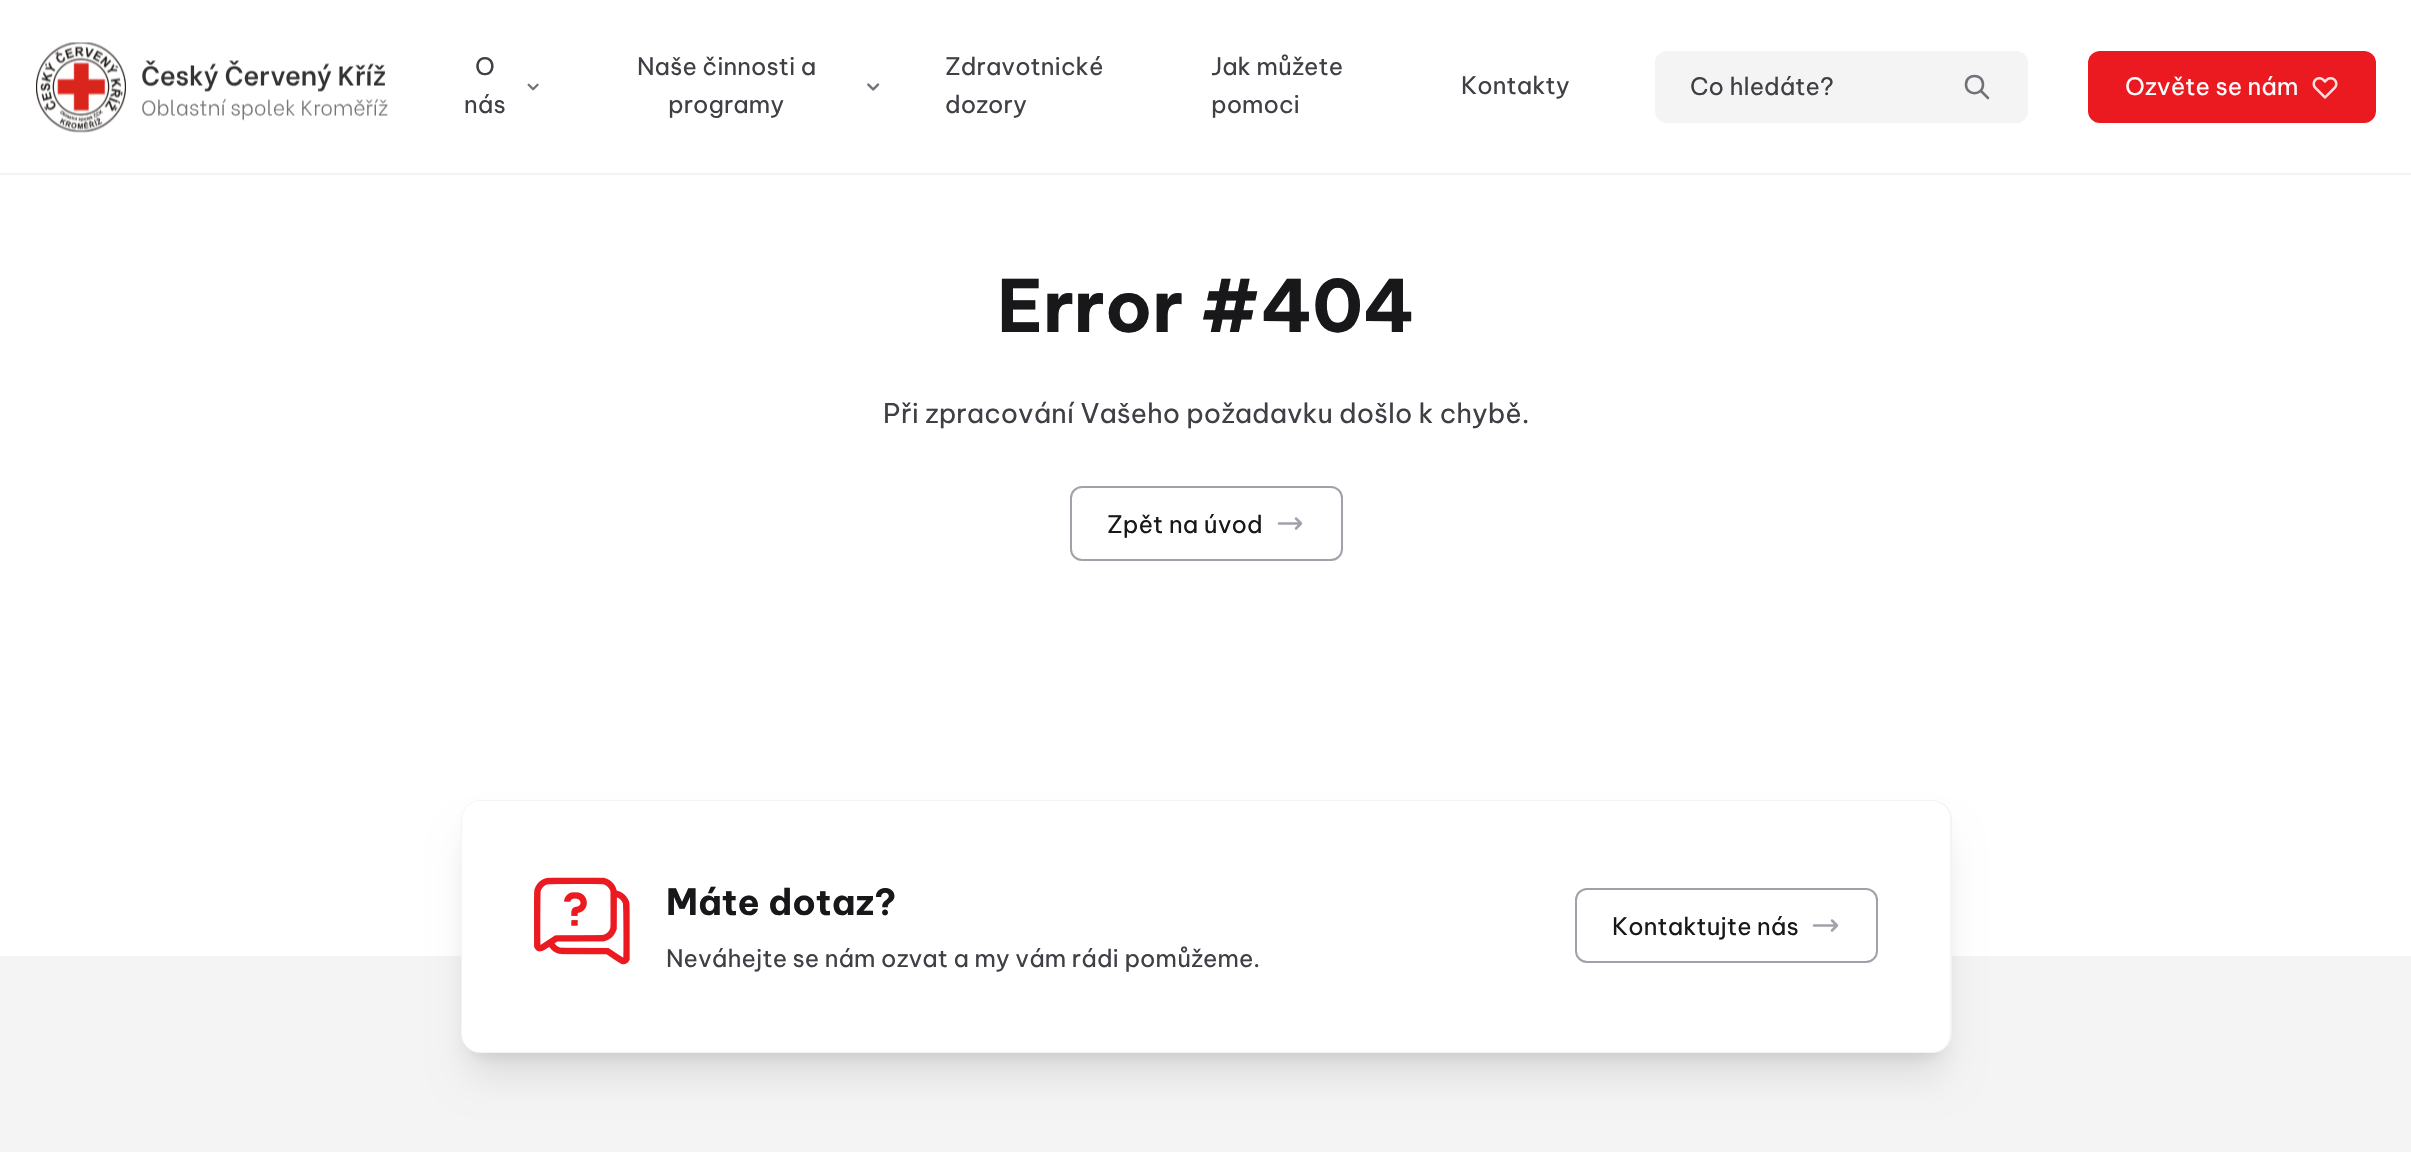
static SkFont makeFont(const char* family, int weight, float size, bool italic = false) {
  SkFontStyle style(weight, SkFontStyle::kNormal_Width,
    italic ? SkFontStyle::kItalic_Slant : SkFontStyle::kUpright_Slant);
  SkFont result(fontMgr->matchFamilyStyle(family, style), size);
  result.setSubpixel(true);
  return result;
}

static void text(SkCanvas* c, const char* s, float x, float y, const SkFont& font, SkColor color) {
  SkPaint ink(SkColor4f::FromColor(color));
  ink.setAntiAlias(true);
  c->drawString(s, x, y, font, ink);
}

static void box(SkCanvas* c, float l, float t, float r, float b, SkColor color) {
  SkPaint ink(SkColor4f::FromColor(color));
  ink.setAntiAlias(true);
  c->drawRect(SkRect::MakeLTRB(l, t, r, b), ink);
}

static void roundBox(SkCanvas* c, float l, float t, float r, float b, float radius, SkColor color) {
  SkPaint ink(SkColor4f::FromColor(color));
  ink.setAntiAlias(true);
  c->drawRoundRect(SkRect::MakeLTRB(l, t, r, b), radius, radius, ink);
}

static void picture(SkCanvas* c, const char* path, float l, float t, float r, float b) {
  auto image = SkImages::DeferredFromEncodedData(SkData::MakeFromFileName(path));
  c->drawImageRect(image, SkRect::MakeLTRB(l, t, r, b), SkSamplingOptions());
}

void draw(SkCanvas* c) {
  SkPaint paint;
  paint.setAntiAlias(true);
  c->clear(0xffffffff);
  box(c, 0, 173, 2411, 175, 0xfff4f4f5);
  picture(c, "img_01.png", 36, 42, 388, 133);
  SkFont face1 = makeFont("Be Vietnam Pro", 400, 24);
  text(c, "O", 475, 75, face1, 0xff3f3f46);
  text(c, "nás", 464, 113, face1, 0xff3f3f46);
  picture(c, "img_02.png", 527, 83, 539, 91);
  text(c, "Naše činnosti a", 637, 75, face1, 0xff3f3f46);
  text(c, "programy", 668, 113, face1, 0xff3f3f46);
  picture(c, "img_03.png", 867, 83, 880, 91);
  text(c, "Zdravotnické", 945, 75, face1, 0xff3f3f46);
  text(c, "dozory", 945, 113, face1, 0xff3f3f46);
  text(c, "Jak můžete", 1211, 75, face1, 0xff3f3f46);
  text(c, "pomoci", 1211, 113, face1, 0xff3f3f46);
  text(c, "Kontakty", 1461, 94, face1, 0xff3f3f46);
  roundBox(c, 1655, 51, 2028, 123, 12, 0xfff4f4f5);
  text(c, "Co hledáte?", 1690, 95, face1, 0xff3f3f46);
  paint.setStyle(SkPaint::kStroke_Style);
  paint.setStrokeWidth(2.5f);
  paint.setStrokeCap(SkPaint::kRound_Cap);
  paint.setStrokeJoin(SkPaint::kRound_Join);
  paint.setColor(0xff71717a);
  c->drawPath(SkPathBuilder().moveTo(1988, 98).lineTo(1981, 91).moveTo(1983, 84.5f).cubicTo(1983, 96, 1966, 96, 1966, 84.5f).cubicTo(1966, 73, 1983, 73, 1983, 84.5f).close().detach(), paint);
  roundBox(c, 2088, 51, 2376, 123, 12, 0xffeb1920);
  text(c, "Ozvěte se nám", 2125, 95, face1, 0xffffffff);
  picture(c, "img_04.png", 2312, 77, 2338, 99);
  SkFont face2 = makeFont("Be Vietnam Pro", 700, 72);
  text(c, "Error #404", 997, 332, face2, 0xff18181b);
  SkFont face3 = makeFont("Be Vietnam Pro", 400, 27);
  text(c, "Při zpracování Vašeho požadavku došlo k chybě.", 883, 423, face3, 0xff3f3f46);
  paint.setStrokeWidth(2);
  paint.setStrokeCap(SkPaint::kButt_Cap);
  paint.setStrokeJoin(SkPaint::kMiter_Join);
  paint.setColor(0xffa1a1aa);
  c->drawRoundRect(SkRect::MakeLTRB(1071, 487, 1342, 560), 11, 11, paint);
  text(c, "Zpět na úvod", 1107, 533, face1, 0xff18181b);
  paint.setStrokeWidth(2.5f);
  paint.setStrokeCap(SkPaint::kRound_Cap);
  paint.setStrokeJoin(SkPaint::kRound_Join);
  c->drawPath(SkPathBuilder().moveTo(1296, 518.5f).lineTo(1301, 523.5f).moveTo(1301, 523.5f).lineTo(1296, 528.5f).moveTo(1301, 523.5f).lineTo(1279, 523.5f).detach(), paint);
  box(c, 0, 956, 2411, 1152, 0xfff4f4f5);
  paint.setStyle(SkPaint::kFill_Style);
  paint.setColor(0x1a000000);
  paint.setMaskFilter(SkMaskFilter::MakeBlur(kNormal_SkBlurStyle, 7.5f));
  c->drawRoundRect(SkRect::MakeLTRB(471, 822, 1941, 1055), 9, 9, paint);
  paint.setMaskFilter(nullptr);
  paint.setMaskFilter(SkMaskFilter::MakeBlur(kNormal_SkBlurStyle, 19));
  c->drawRoundRect(SkRect::MakeLTRB(470, 839, 1943, 1074), 11, 11, paint);
  paint.setMaskFilter(nullptr);
  paint.setStyle(SkPaint::kStroke_Style);
  paint.setStrokeWidth(2);
  paint.setStrokeCap(SkPaint::kButt_Cap);
  paint.setStrokeJoin(SkPaint::kMiter_Join);
  paint.setColor(0xfff4f4f5);
  c->drawRoundRect(SkRect::MakeLTRB(462, 801, 1951, 1052), 19, 19, paint);
  roundBox(c, 462, 801, 1950, 1052, 18, 0xffffffff);
  picture(c, "img_05.png", 534, 877, 630, 965);
  SkFont face4 = makeFont("Be Vietnam Pro", 700, 36);
  text(c, "Máte dotaz?", 666, 915, face4, 0xff18181b);
  text(c, "Neváhejte se nám ozvat a my vám rádi pomůžeme.", 666, 967, face1, 0xff3f3f46);
  paint.setColor(0xffa1a1aa);
  c->drawRoundRect(SkRect::MakeLTRB(1576, 889, 1877, 962), 11, 11, paint);
  text(c, "Kontaktujte nás", 1612, 935, face1, 0xff18181b);
  paint.setStrokeWidth(2.5f);
  paint.setStrokeCap(SkPaint::kRound_Cap);
  paint.setStrokeJoin(SkPaint::kRound_Join);
  c->drawPath(SkPathBuilder().moveTo(1832, 920.5f).lineTo(1837, 925.5f).moveTo(1837, 925.5f).lineTo(1832, 930.5f).moveTo(1837, 925.5f).lineTo(1814, 925.5f).detach(), paint);
}
